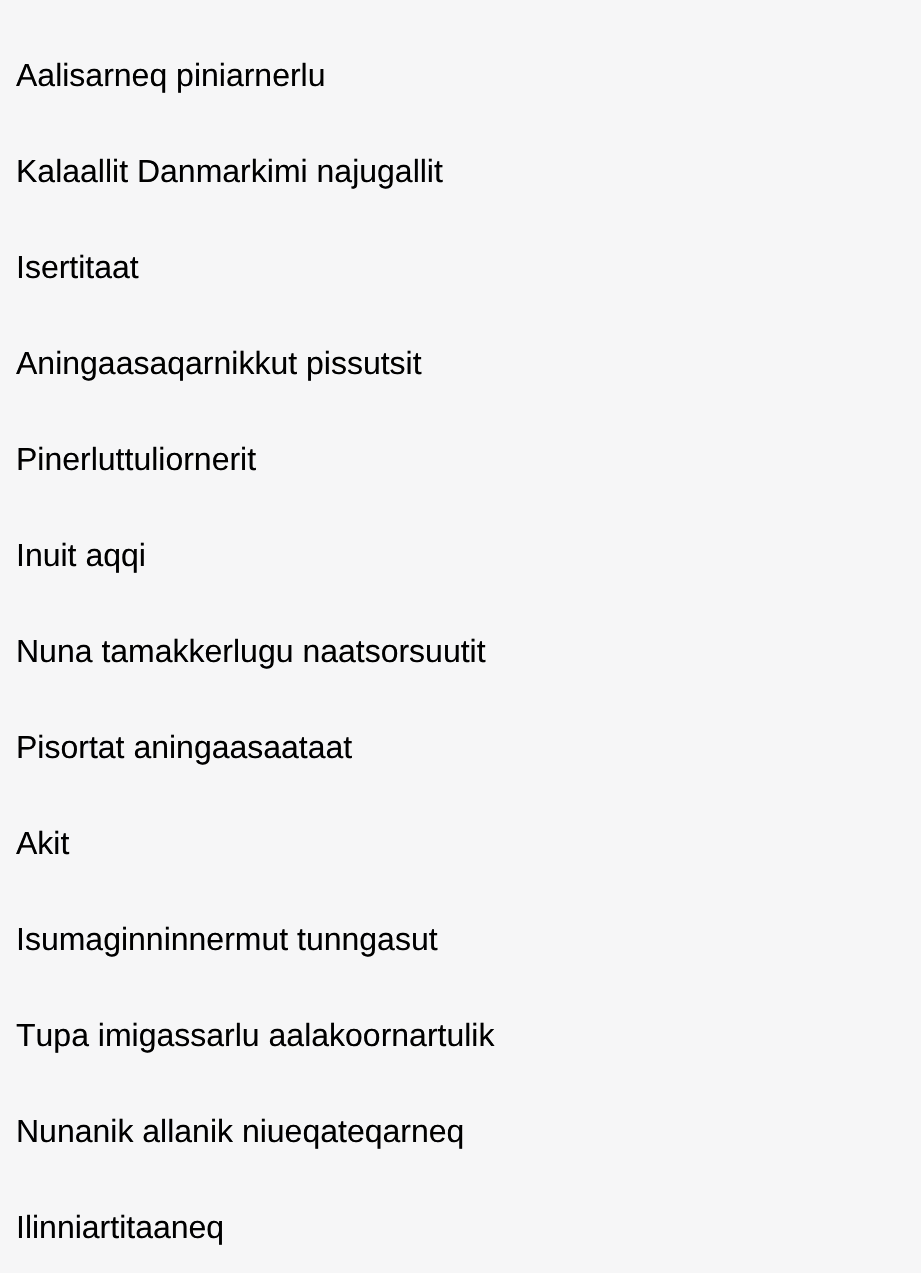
static SkFont makeFont(const char* family, int weight, float size, bool italic = false) {
  SkFontStyle style(weight, SkFontStyle::kNormal_Width,
    italic ? SkFontStyle::kItalic_Slant : SkFontStyle::kUpright_Slant);
  SkFont result(fontMgr->matchFamilyStyle(family, style), size);
  result.setSubpixel(true);
  return result;
}

static void text(SkCanvas* c, const char* s, float x, float y, const SkFont& font, SkColor color) {
  SkPaint ink(SkColor4f::FromColor(color));
  ink.setAntiAlias(true);
  c->drawString(s, x, y, font, ink);
}

void draw(SkCanvas* c) {
  SkPaint paint;
  paint.setAntiAlias(true);
  c->clear(0xfff6f6f7);
  SkFont face1 = makeFont("Liberation Sans", 400, 32);
  text(c, "Aalisarneq piniarnerlu", 16, 86, face1, 0xff000000);
  text(c, "Kalaallit Danmarkimi najugallit", 16, 182, face1, 0xff000000);
  text(c, "Isertitaat", 16, 278, face1, 0xff000000);
  text(c, "Aningaasaqarnikkut pissutsit", 16, 374, face1, 0xff000000);
  text(c, "Pinerluttuliornerit", 16, 470, face1, 0xff000000);
  text(c, "Inuit aqqi", 16, 566, face1, 0xff000000);
  text(c, "Nuna tamakkerlugu naatsorsuutit", 16, 662, face1, 0xff000000);
  text(c, "Pisortat aningaasaataat", 16, 758, face1, 0xff000000);
  text(c, "Akit", 16, 854, face1, 0xff000000);
  text(c, "Isumaginninnermut tunngasut", 16, 950, face1, 0xff000000);
  text(c, "Tupa imigassarlu aalakoornartulik", 16, 1046, face1, 0xff000000);
  text(c, "Nunanik allanik niueqateqarneq", 16, 1142, face1, 0xff000000);
  text(c, "Ilinniartitaaneq", 16, 1238, face1, 0xff000000);
}
